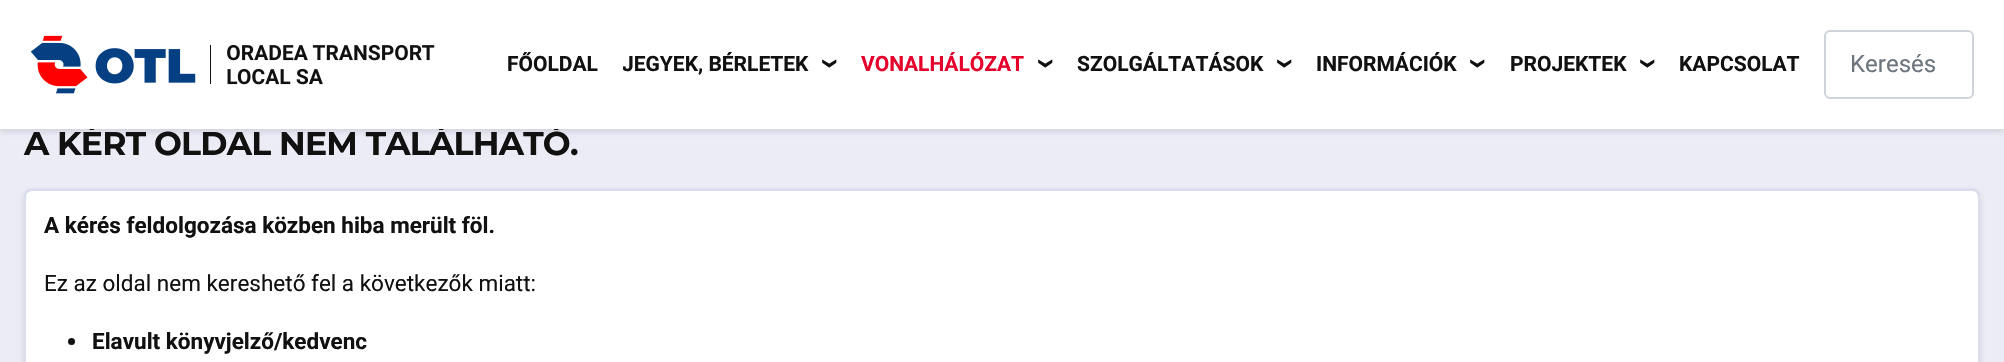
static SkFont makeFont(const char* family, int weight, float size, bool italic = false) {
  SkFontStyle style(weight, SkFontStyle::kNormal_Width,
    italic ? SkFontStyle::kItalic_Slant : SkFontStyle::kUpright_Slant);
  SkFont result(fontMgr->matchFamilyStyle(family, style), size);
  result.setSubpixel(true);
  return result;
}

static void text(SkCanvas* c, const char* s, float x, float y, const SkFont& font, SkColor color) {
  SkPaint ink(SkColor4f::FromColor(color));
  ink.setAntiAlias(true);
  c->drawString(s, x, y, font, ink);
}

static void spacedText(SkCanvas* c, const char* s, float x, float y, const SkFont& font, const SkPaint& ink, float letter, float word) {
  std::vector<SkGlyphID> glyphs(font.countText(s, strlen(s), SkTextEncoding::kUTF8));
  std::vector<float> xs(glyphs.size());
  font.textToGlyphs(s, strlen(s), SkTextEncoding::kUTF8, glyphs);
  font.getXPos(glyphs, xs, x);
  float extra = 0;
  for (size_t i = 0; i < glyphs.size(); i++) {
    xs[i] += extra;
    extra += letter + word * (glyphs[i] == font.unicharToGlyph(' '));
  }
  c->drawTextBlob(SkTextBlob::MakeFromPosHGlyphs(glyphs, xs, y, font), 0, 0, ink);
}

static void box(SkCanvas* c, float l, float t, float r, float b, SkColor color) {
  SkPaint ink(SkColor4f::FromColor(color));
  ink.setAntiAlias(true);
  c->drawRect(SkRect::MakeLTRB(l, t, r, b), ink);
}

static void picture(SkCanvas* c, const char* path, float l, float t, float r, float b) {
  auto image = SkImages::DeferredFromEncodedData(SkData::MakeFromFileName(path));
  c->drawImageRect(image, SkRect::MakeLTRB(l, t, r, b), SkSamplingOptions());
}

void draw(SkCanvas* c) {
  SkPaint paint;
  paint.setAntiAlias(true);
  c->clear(0xffebecf5);
  paint.setColor(0x26393844);
  paint.setMaskFilter(SkMaskFilter::MakeBlur(kNormal_SkBlurStyle, 3));
  c->drawRect(SkRect::MakeLTRB(0, 3, 2004, 132), paint);
  paint.setMaskFilter(nullptr);
  SkFont face1 = makeFont("Montserrat", 700, 33);
  paint.setColor(0xff111111);
  spacedText(c, "A KÉRT OLDAL NEM TALÁLHATÓ.", 24, 155, face1, paint, -0.75f, 0);
  box(c, 0, 0, 2004, 129, 0xffffffff);
  picture(c, "img_01.png", 30, 35, 435, 94);
  SkFont face2 = makeFont("Roboto", 700, 21);
  text(c, "FŐOLDAL", 507, 71, face2, 0xff111111);
  c->save();
  c->clipRect(SkRect::MakeLTRB(623, 50, 837, 81));
  text(c, "JEGYEK, BÉRLETEK", 622, 71, face2, 0xff111111);
  c->restore();
  SkFont face3 = makeFont("Roboto", 700, 36);
  c->save();
  c->rotate(90, 820, 58);
  text(c, "›", 820, 58, face3, 0xff111111);
  c->restore();
  text(c, "VONALHÁLÓZAT", 861, 71, face2, 0xffe4002b);
  c->save();
  c->rotate(90, 1036, 58);
  text(c, "›", 1036, 58, face3, 0xff111111);
  c->restore();
  text(c, "SZOLGÁLTATÁSOK", 1077, 71, face2, 0xff111111);
  c->save();
  c->rotate(90, 1275, 58);
  text(c, "›", 1275, 58, face3, 0xff111111);
  c->restore();
  text(c, "INFORMÁCIÓK", 1316, 71, face2, 0xff111111);
  c->save();
  c->rotate(90, 1468, 58);
  text(c, "›", 1468, 58, face3, 0xff111111);
  c->restore();
  text(c, "PROJEKTEK", 1510, 71, face2, 0xff111111);
  c->save();
  c->rotate(90, 1638, 58);
  text(c, "›", 1638, 58, face3, 0xff111111);
  c->restore();
  text(c, "KAPCSOLAT", 1679, 71, face2, 0xff111111);
  paint.setStyle(SkPaint::kStroke_Style);
  paint.setStrokeWidth(2);
  paint.setColor(0xffced4da);
  c->drawRoundRect(SkRect::MakeLTRB(1825, 31, 1973, 98), 5, 5, paint);
  SkFont face4 = makeFont("Roboto", 400, 24);
  text(c, "Keresés", 1850, 72, face4, 0xff6d757e);
  paint.setStyle(SkPaint::kFill_Style);
  paint.setColor(0x26393844);
  paint.setMaskFilter(SkMaskFilter::MakeBlur(kNormal_SkBlurStyle, 3));
  c->drawRoundRect(SkRect::MakeLTRB(24, 191, 1980, 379), 8, 8, paint);
  paint.setMaskFilter(nullptr);
  paint.setStyle(SkPaint::kStroke_Style);
  paint.setColor(0xffdee0f5);
  c->drawRoundRect(SkRect::MakeLTRB(25, 189, 1979, 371), 7, 7, paint);
  paint.setStyle(SkPaint::kFill_Style);
  paint.setColor(0xffffffff);
  c->drawRoundRect(SkRect::MakeLTRB(25, 190, 1979, 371), 7, 7, paint);
  paint.setStyle(SkPaint::kStroke_Style);
  paint.setColor(0xffdbddec);
  c->drawRoundRect(SkRect::MakeLTRB(25, 190, 1979, 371), 7, 7, paint);
  SkFont face5 = makeFont("Roboto", 700, 22.5f);
  text(c, "A kérés feldolgozása közben hiba merült föl.", 44, 233, face5, 0xff111111);
  SkFont face6 = makeFont("Roboto", 400, 22.5f);
  text(c, "Ez az oldal nem kereshető fel a következők miatt:", 44, 291, face6, 0xff111111);
  paint.setStyle(SkPaint::kFill_Style);
  paint.setColor(0xff111111);
  c->drawCircle(71.5f, 341.5f, 3.5f, paint);
  text(c, "Elavult könyvjelző/kedvenc", 92, 349, face5, 0xff111111);
}
